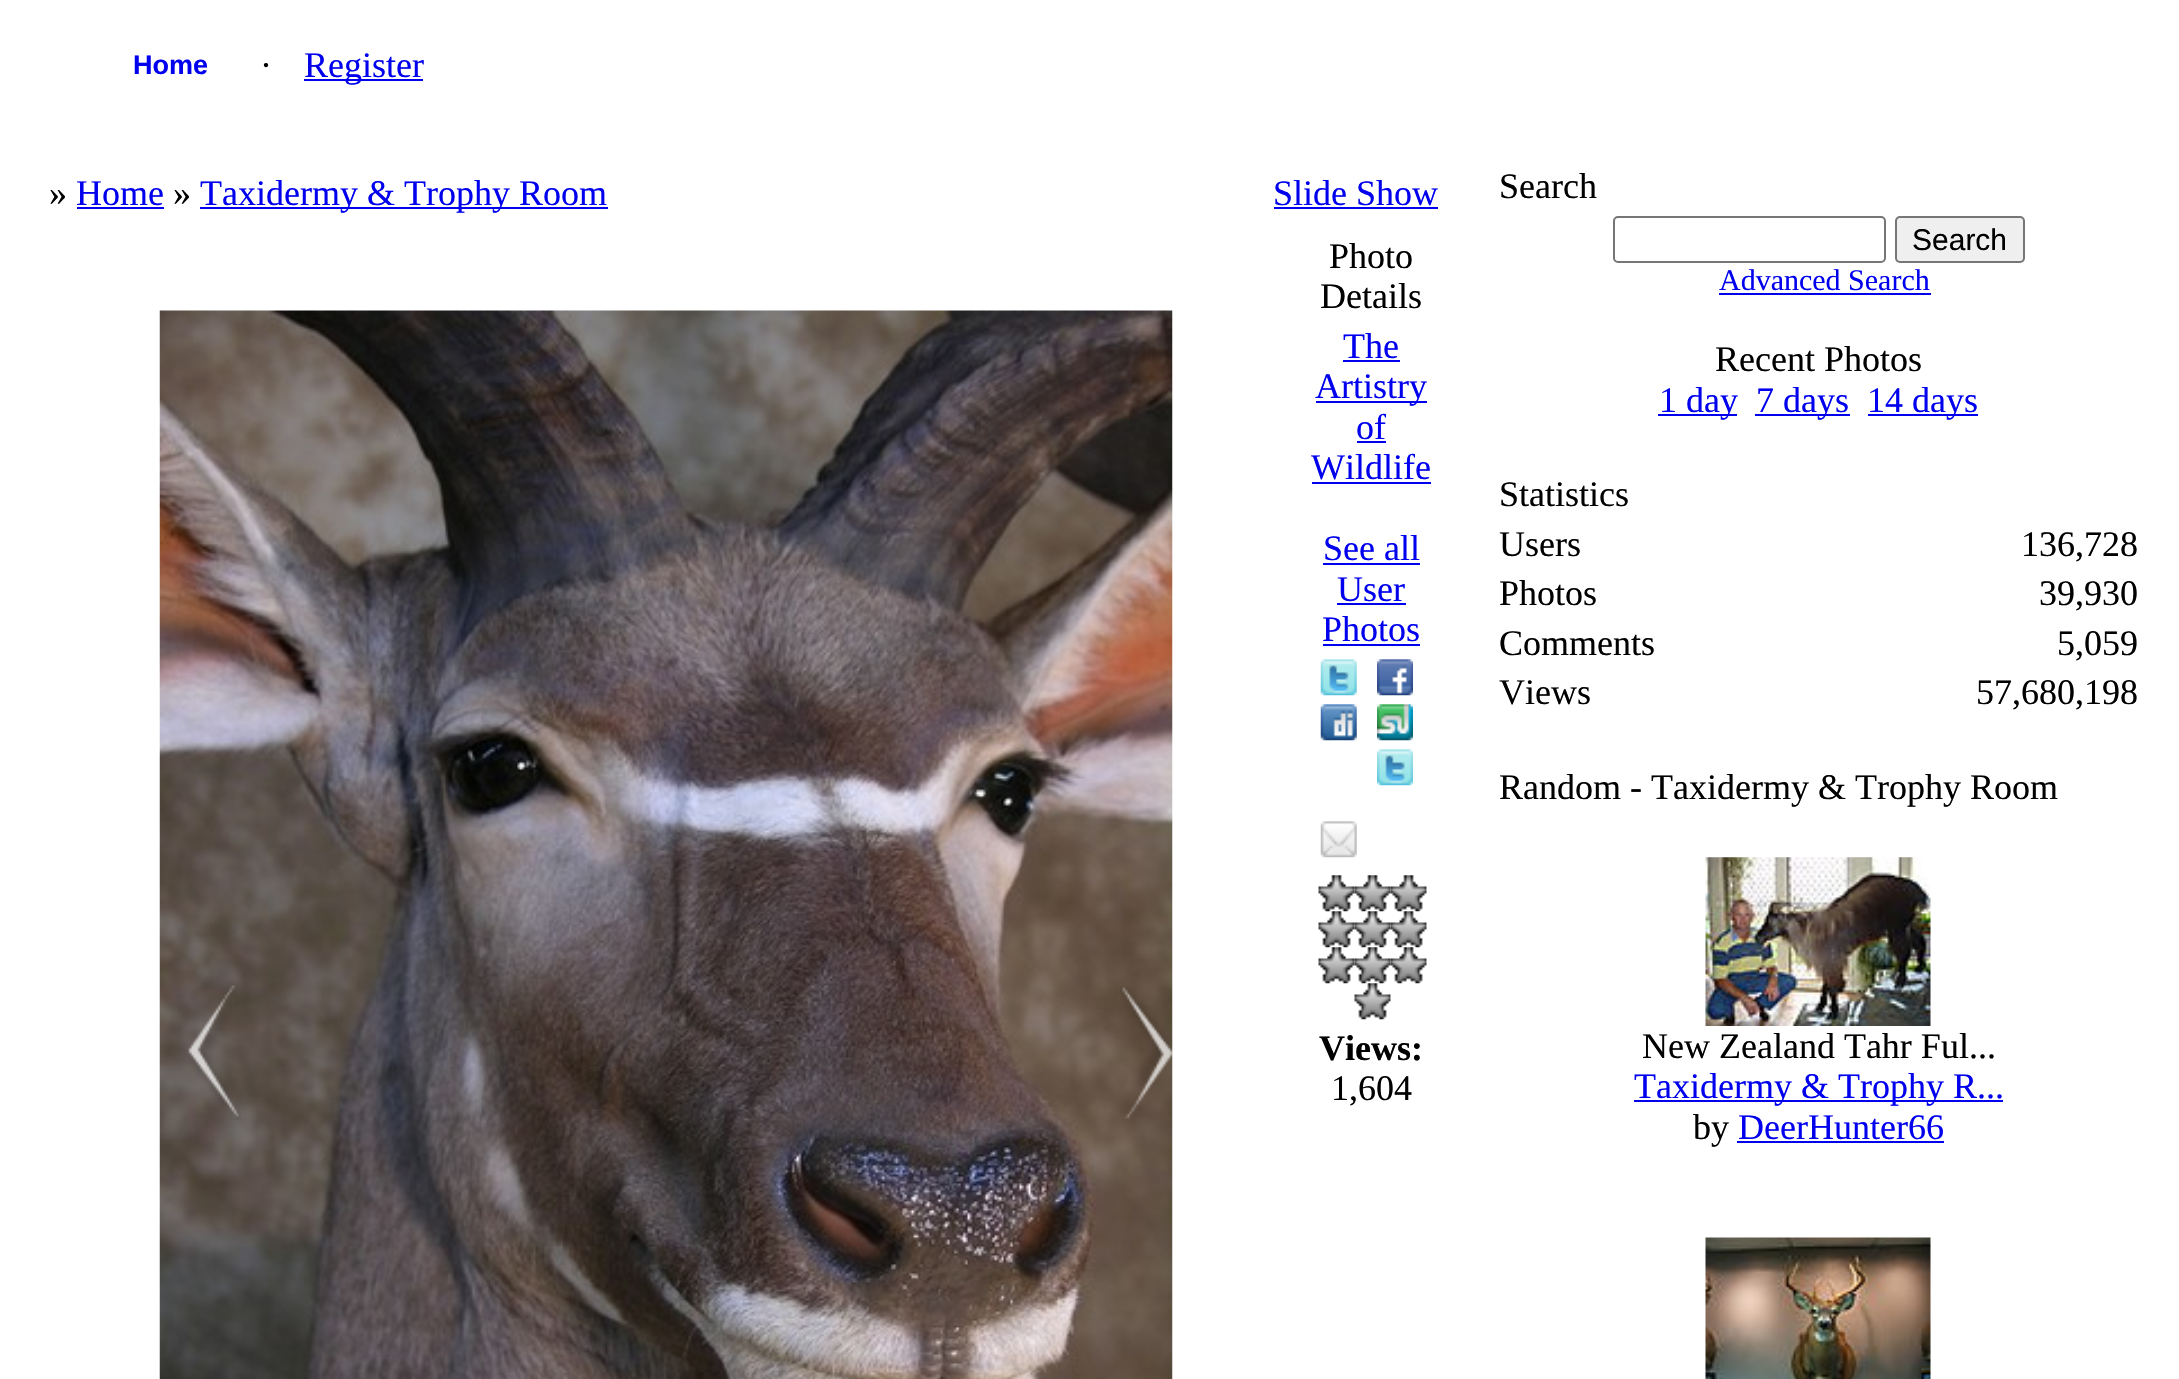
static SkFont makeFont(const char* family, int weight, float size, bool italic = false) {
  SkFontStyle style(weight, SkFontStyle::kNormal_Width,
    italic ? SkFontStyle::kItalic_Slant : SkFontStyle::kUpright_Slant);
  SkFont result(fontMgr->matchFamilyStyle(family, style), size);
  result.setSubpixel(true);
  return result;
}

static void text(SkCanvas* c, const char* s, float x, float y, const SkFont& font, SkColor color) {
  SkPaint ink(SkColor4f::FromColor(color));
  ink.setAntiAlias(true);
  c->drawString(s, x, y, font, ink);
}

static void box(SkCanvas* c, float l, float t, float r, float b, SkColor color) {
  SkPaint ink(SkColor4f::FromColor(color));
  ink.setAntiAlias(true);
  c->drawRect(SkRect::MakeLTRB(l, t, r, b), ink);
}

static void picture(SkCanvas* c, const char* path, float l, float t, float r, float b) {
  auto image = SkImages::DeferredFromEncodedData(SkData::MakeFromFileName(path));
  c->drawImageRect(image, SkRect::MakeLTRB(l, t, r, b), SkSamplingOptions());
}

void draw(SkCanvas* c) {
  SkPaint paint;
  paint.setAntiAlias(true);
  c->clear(0xffffffff);
  SkFont face1 = makeFont("Liberation Sans", 700, 27);
  text(c, "Home", 133, 74, face1, 0xff0000ee);
  SkFont face2 = makeFont("Liberation Serif", 400, 36);
  text(c, "·", 260, 77, face2, 0xff000000);
  box(c, 304, 79, 423, 81, 0xff0000ee);
  text(c, "Register", 304, 77, face2, 0xff0000ee);
  text(c, "»", 49, 205, face2, 0xff000000);
  text(c, "Home", 76, 205, face2, 0xff0000ee);
  box(c, 77, 207, 164, 209, 0xff0000ee);
  text(c, "»", 173, 205, face2, 0xff000000);
  box(c, 200, 207, 608, 209, 0xff0000ee);
  text(c, "Taxidermy & Trophy Room", 200, 205, face2, 0xff0000ee);
  text(c, "Slide Show", 1273, 205, face2, 0xff0000ee);
  box(c, 1274, 207, 1438, 209, 0xff0000ee);
  picture(c, "img_01.png", 159, 310, 1173, 1379);
  picture(c, "img_02.png", 188, 985, 241, 1120);
  picture(c, "img_03.png", 1120, 986, 1173, 1119);
  text(c, "Photo", 1329, 268, face2, 0xff000000);
  text(c, "Details", 1320, 308, face2, 0xff000000);
  text(c, "The", 1343, 358, face2, 0xff0000ee);
  box(c, 1343, 360, 1400, 362, 0xff0000ee);
  box(c, 1316, 401, 1427, 403, 0xff0000ee);
  text(c, "Artistry", 1315, 398, face2, 0xff0000ee);
  text(c, "of", 1356, 439, face2, 0xff0000ee);
  box(c, 1357, 441, 1386, 443, 0xff0000ee);
  text(c, "Wildlife", 1311, 479, face2, 0xff0000ee);
  box(c, 1312, 482, 1431, 484, 0xff0000ee);
  text(c, "See all", 1323, 560, face2, 0xff0000ee);
  box(c, 1323, 563, 1420, 565, 0xff0000ee);
  text(c, "User", 1337, 601, face2, 0xff0000ee);
  box(c, 1337, 603, 1406, 605, 0xff0000ee);
  text(c, "Photos", 1322, 641, face2, 0xff0000ee);
  box(c, 1323, 644, 1420, 646, 0xff0000ee);
  picture(c, "img_04.png", 1320, 659, 1357, 696);
  picture(c, "img_05.png", 1377, 659, 1413, 696);
  picture(c, "img_06.png", 1320, 704, 1357, 741);
  picture(c, "img_07.png", 1377, 704, 1413, 741);
  picture(c, "img_08.png", 1377, 749, 1413, 786);
  picture(c, "img_09.png", 1320, 821, 1357, 858);
  picture(c, "img_10.png", 1318, 875, 1355, 912);
  picture(c, "img_11.png", 1354, 875, 1391, 912);
  picture(c, "img_11.png", 1390, 875, 1427, 912);
  picture(c, "img_12.png", 1318, 911, 1355, 948);
  picture(c, "img_13.png", 1354, 911, 1391, 948);
  picture(c, "img_13.png", 1390, 911, 1427, 948);
  picture(c, "img_12.png", 1318, 947, 1355, 984);
  picture(c, "img_13.png", 1354, 947, 1391, 984);
  picture(c, "img_13.png", 1390, 947, 1427, 984);
  picture(c, "img_14.png", 1354, 983, 1391, 1020);
  SkFont face3 = makeFont("Liberation Serif", 700, 36);
  text(c, "Views:", 1319, 1060, face3, 0xff000000);
  text(c, "1,604", 1331, 1100, face2, 0xff000000);
  text(c, "Search", 1499, 198, face2, 0xff000000);
  paint.setStyle(SkPaint::kStroke_Style);
  paint.setStrokeWidth(2);
  paint.setColor(0xff767676);
  c->drawRoundRect(SkRect::MakeLTRB(1614, 217, 1885, 262), 4, 4, paint);
  paint.setStyle(SkPaint::kFill_Style);
  paint.setColor(0xffefefef);
  c->drawRoundRect(SkRect::MakeLTRB(1896, 217, 2024, 262), 4, 4, paint);
  paint.setStyle(SkPaint::kStroke_Style);
  paint.setColor(0xff767676);
  c->drawRoundRect(SkRect::MakeLTRB(1896, 217, 2024, 262), 4, 4, paint);
  SkFont face4 = makeFont("Liberation Sans", 400, 30);
  text(c, "Search", 1912, 250, face4, 0xff000000);
  SkFont face5 = makeFont("Liberation Serif", 400, 30);
  text(c, "Advanced Search", 1719, 290, face5, 0xff0000ee);
  box(c, 1719, 293, 1931, 295, 0xff0000ee);
  text(c, "Recent Photos", 1715, 371, face2, 0xff000000);
  box(c, 1658, 414, 1737, 416, 0xff0000ee);
  text(c, "1 day", 1659, 412, face2, 0xff0000ee);
  box(c, 1755, 414, 1850, 416, 0xff0000ee);
  text(c, "7 days", 1756, 412, face2, 0xff0000ee);
  box(c, 1868, 414, 1978, 416, 0xff0000ee);
  text(c, "14 days", 1867, 412, face2, 0xff0000ee);
  text(c, "Statistics", 1499, 506, face2, 0xff000000);
  text(c, "Users", 1499, 556, face2, 0xff000000);
  text(c, "136,728", 2021, 556, face2, 0xff000000);
  text(c, "Photos", 1499, 605, face2, 0xff000000);
  text(c, "39,930", 2039, 605, face2, 0xff000000);
  text(c, "Comments", 1499, 655, face2, 0xff000000);
  text(c, "5,059", 2057, 655, face2, 0xff000000);
  text(c, "Views", 1499, 704, face2, 0xff000000);
  text(c, "57,680,198", 1976, 704, face2, 0xff000000);
  text(c, "Random - Taxidermy & Trophy Room", 1499, 799, face2, 0xff000000);
  picture(c, "img_15.png", 1705, 857, 1931, 1026);
  text(c, "New Zealand Tahr Ful...", 1642, 1058, face2, 0xff000000);
  box(c, 1634, 1100, 2003, 1102, 0xff0000ee);
  text(c, "Taxidermy & Trophy R...", 1634, 1098, face2, 0xff0000ee);
  text(c, "by", 1693, 1139, face2, 0xff000000);
  text(c, "DeerHunter66", 1738, 1139, face2, 0xff0000ee);
  box(c, 1737, 1141, 1944, 1143, 0xff0000ee);
  picture(c, "img_16.png", 1705, 1237, 1931, 1379);
}
